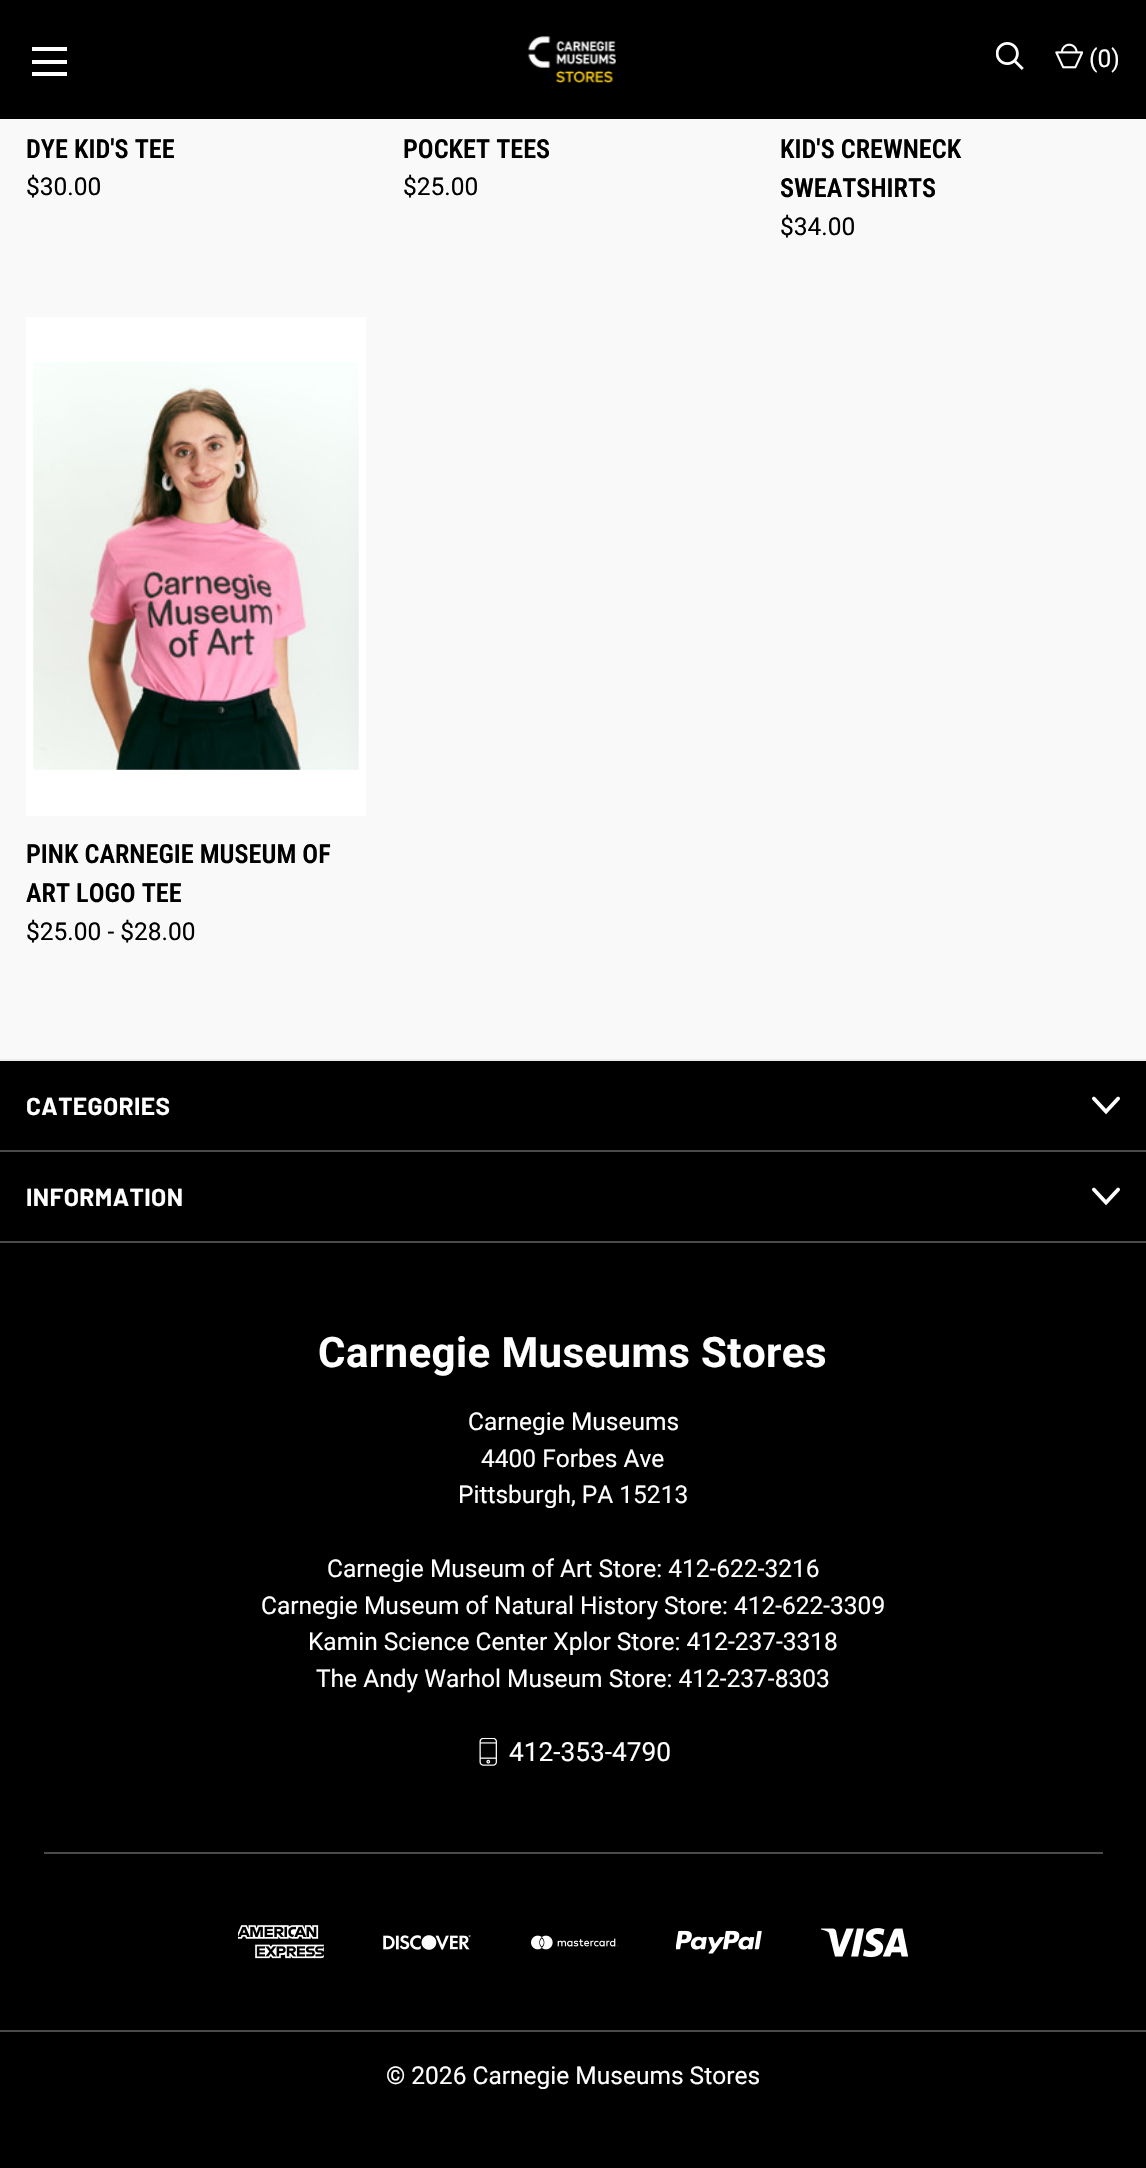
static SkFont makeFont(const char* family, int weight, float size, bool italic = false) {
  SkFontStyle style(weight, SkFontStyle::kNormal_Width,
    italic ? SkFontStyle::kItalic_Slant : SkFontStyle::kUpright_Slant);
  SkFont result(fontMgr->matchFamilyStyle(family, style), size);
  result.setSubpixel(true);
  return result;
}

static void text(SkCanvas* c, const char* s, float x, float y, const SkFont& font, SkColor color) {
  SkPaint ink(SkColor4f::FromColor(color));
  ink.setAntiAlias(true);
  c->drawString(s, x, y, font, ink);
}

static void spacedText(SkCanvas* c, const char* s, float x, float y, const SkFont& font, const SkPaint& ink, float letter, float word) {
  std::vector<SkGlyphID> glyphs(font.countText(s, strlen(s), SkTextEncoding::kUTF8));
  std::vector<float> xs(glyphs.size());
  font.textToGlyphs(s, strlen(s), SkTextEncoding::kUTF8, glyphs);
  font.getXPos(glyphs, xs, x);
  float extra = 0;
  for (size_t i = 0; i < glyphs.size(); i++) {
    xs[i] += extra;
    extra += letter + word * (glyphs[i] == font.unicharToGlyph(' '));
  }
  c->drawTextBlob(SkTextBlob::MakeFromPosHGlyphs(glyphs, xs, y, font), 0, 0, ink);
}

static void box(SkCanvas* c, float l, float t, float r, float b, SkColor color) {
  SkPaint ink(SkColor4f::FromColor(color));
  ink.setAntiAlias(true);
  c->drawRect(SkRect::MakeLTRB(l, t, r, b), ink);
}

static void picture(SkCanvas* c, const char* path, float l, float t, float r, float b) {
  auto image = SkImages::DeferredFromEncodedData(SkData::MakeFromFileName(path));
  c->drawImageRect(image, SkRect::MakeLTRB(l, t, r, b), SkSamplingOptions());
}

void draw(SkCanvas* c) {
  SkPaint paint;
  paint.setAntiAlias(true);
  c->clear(0xfff9f9f9);
  box(c, 0, 0, 1146, 119, 0xff000000);
  box(c, 32, 60, 67, 64, 0xffffffff);
  box(c, 32, 47, 67, 51, 0xffffffff);
  box(c, 32, 72, 67, 76, 0xffffffff);
  picture(c, "img_01.png", 527, 36, 617, 83);
  picture(c, "img_02.png", 996, 42, 1024, 70);
  picture(c, "img_03.png", 1055, 43, 1083, 69);
  SkFont face1 = makeFont("Roboto", 400, 24.5f);
  text(c, "(0)", 1089, 67, face1, 0xffffffff);
  SkFont face2 = makeFont("Roboto Condensed", 600, 26.25f);
  text(c, "DYE KID'S TEE", 26, 158, face2, 0xff000000);
  text(c, "$30.00", 26, 195, face1, 0xff000000);
  text(c, "POCKET TEES", 403, 158, face2, 0xff000000);
  text(c, "$25.00", 403, 195, face1, 0xff000000);
  text(c, "KID'S CREWNECK", 780, 158, face2, 0xff000000);
  text(c, "SWEATSHIRTS", 780, 197, face2, 0xff000000);
  text(c, "$34.00", 780, 235, face1, 0xff000000);
  box(c, 26, 317, 366, 816, 0xffffffff);
  picture(c, "img_04.png", 33, 362, 359, 770);
  text(c, "PINK CARNEGIE MUSEUM OF", 26, 863, face2, 0xff000000);
  text(c, "ART LOGO TEE", 26, 902, face2, 0xff000000);
  text(c, "$25.00 - $28.00", 26, 940, face1, 0xff000000);
  box(c, 0, 1061, 1146, 2168, 0xff000000);
  box(c, 0, 1059, 1146, 1061, 0xffebebeb);
  box(c, 0, 1150, 1146, 1152, 0xff4a4a4a);
  SkFont face3 = makeFont("Barlow", 700, 24.5f);
  paint.setColor(0xffffffff);
  spacedText(c, "CATEGORIES", 26, 1115, face3, paint, 0.4f, 0);
  picture(c, "img_05.png", 1092, 1096, 1120, 1115);
  box(c, 0, 1241, 1146, 1243, 0xff4a4a4a);
  spacedText(c, "INFORMATION", 26, 1206, face3, paint, 0.4f, 0);
  picture(c, "img_05.png", 1092, 1187, 1120, 1206);
  box(c, 44, 1852, 1103, 1854, 0xff4a4a4a);
  SkFont face4 = makeFont("Roboto", 700, 42);
  spacedText(c, "Carnegie Museums Stores", 318, 1367, face4, paint, 0.4f, 0);
  text(c, "Carnegie Museums", 468, 1430, face1, 0xffffffff);
  text(c, "4400 Forbes Ave", 481, 1467, face1, 0xffffffff);
  text(c, "Pittsburgh, PA 15213", 458, 1503, face1, 0xffffffff);
  text(c, "Carnegie Museum of Art Store: 412-622-3216", 327, 1577, face1, 0xffffffff);
  text(c, "Carnegie Museum of Natural History Store: 412-622-3309", 261, 1614, face1, 0xffffffff);
  text(c, "Kamin Science Center Xplor Store: 412-237-3318", 308, 1650, face1, 0xffffffff);
  text(c, "The Andy Warhol Museum Store: 412-237-8303", 316, 1687, face1, 0xffffffff);
  picture(c, "img_06.png", 479, 1738, 497, 1766);
  SkFont face5 = makeFont("Roboto", 400, 26.25f);
  text(c, "412-353-4790", 509, 1761, face5, 0xffffffff);
  box(c, 0, 2030, 1146, 2032, 0xff4a4a4a);
  picture(c, "img_07.png", 238, 1925, 324, 1959);
  picture(c, "img_08.png", 383, 1935, 471, 1950);
  picture(c, "img_09.png", 531, 1935, 618, 1950);
  picture(c, "img_10.png", 676, 1930, 762, 1954);
  picture(c, "img_11.png", 821, 1928, 908, 1958);
  text(c, "© 2026 Carnegie Museums Stores", 386, 2084, face1, 0xffffffff);
}
